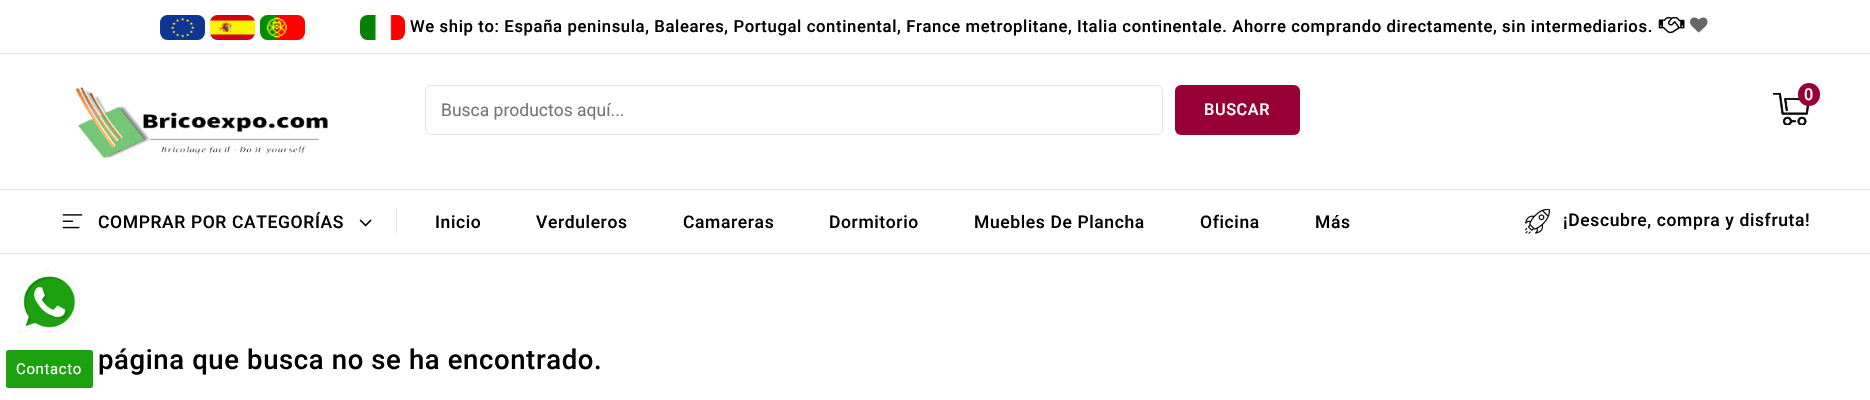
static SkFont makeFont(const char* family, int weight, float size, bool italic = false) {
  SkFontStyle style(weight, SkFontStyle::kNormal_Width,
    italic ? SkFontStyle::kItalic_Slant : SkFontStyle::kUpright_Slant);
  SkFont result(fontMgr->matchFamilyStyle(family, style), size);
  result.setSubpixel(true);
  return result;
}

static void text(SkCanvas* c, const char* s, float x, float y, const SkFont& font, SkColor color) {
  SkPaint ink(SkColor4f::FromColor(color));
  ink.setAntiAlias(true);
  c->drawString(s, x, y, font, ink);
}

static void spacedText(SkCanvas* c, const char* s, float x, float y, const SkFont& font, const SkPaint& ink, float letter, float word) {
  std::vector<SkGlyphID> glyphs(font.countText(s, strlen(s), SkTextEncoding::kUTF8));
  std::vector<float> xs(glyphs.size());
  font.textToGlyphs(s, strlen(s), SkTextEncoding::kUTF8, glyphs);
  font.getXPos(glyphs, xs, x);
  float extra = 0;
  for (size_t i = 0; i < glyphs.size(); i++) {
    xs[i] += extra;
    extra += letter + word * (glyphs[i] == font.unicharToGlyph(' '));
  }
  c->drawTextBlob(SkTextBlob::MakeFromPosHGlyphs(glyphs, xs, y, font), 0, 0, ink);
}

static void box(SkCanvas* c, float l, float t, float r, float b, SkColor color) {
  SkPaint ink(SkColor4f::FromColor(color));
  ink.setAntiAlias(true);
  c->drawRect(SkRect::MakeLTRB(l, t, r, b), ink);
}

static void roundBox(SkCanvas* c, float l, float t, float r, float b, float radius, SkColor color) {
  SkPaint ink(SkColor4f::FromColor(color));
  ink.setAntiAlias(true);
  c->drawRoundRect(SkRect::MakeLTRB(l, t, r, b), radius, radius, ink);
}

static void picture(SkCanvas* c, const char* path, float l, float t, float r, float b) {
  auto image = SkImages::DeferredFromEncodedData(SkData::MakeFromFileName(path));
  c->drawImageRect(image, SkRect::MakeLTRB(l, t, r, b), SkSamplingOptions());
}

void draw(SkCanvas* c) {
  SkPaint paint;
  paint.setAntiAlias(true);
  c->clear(0xffffffff);
  box(c, 0, 53, 1870, 54, 0xffe5e5e5);
  picture(c, "img_01.png", 160, 15, 205, 40);
  picture(c, "img_02.png", 210, 15, 255, 40);
  picture(c, "img_03.png", 260, 15, 305, 40);
  picture(c, "img_04.png", 360, 15, 405, 40);
  SkFont face1 = makeFont("Roboto", 500, 16.67f);
  paint.setColor(0xff000000);
  spacedText(c, "We ship to: España peninsula, Baleares, Portugal continental, France metroplitane, Italia continentale. Ahorre comprando directamente, sin intermediarios.", 410, 32, face1, paint, 0.62f, 0);
  picture(c, "img_05.png", 1658, 16, 1685, 34);
  picture(c, "img_06.png", 1690, 17, 1708, 33);
  box(c, 0, 189, 1870, 190, 0xffe5e5e5);
  picture(c, "img_07.png", 75, 87, 328, 158);
  picture(c, "img_08.png", 1773, 93, 1810, 125);
  roundBox(c, 1798, 83, 1820, 106, 11, 0xff980035);
  SkFont face2 = makeFont("Roboto", 500, 16.25f);
  paint.setColor(0xffffffff);
  spacedText(c, "0", 1804, 100, face2, paint, 0.62f, 0);
  paint.setStyle(SkPaint::kStroke_Style);
  paint.setStrokeWidth(1);
  paint.setColor(0xffe5e5e5);
  c->drawRoundRect(SkRect::MakeLTRB(425.5f, 85.5f, 1162.5f, 134.5f), 5.5f, 5.5f, paint);
  SkFont face3 = makeFont("Roboto", 400, 17.5f);
  text(c, "Busca productos aquí...", 441, 116, face3, 0xff757575);
  roundBox(c, 1175, 85, 1300, 135, 6, 0xff980035);
  paint.setStyle(SkPaint::kFill_Style);
  paint.setColor(0xffffffff);
  spacedText(c, "BUSCAR", 1204, 115, face2, paint, 0.62f, 0);
  box(c, 0, 253, 1870, 254, 0xffe5e5e5);
  picture(c, "img_09.png", 62, 214, 83, 229);
  SkFont face4 = makeFont("Roboto", 500, 17.5f);
  paint.setColor(0xff000000);
  spacedText(c, "COMPRAR POR CATEGORÍAS", 98, 228, face4, paint, 0.62f, 0);
  picture(c, "img_10.png", 359, 219, 372, 227);
  box(c, 396, 208, 397, 233, 0xffe5e5e5);
  spacedText(c, "Inicio", 435, 228, face4, paint, 0.62f, 0);
  spacedText(c, "Verduleros", 536, 228, face4, paint, 0.62f, 0);
  spacedText(c, "Camareras", 683, 228, face4, paint, 0.62f, 0);
  spacedText(c, "Dormitorio", 829, 228, face4, paint, 0.62f, 0);
  spacedText(c, "Muebles De Plancha", 974, 228, face4, paint, 0.62f, 0);
  spacedText(c, "Oficina", 1200, 228, face4, paint, 0.62f, 0);
  spacedText(c, "Más", 1315, 228, face4, paint, 0.62f, 0);
  picture(c, "img_11.png", 1525, 209, 1550, 234);
  spacedText(c, "¡Descubre, compra y disfruta!", 1563, 226, face4, paint, 0.62f, 0);
  picture(c, "img_12.png", 17, 271, 80, 334);
  roundBox(c, 6, 350, 93, 388, 2.5f, 0xff1da110);
  SkFont face5 = makeFont("Roboto", 400, 15);
  paint.setColor(0xffffffff);
  spacedText(c, "Contacto", 16, 374, face5, paint, 0.62f, 0);
  SkFont face6 = makeFont("Roboto", 500, 27.5f);
  paint.setColor(0xff000000);
  spacedText(c, "página que busca no se ha encontrado.", 98, 369, face6, paint, 0.62f, 0);
}
